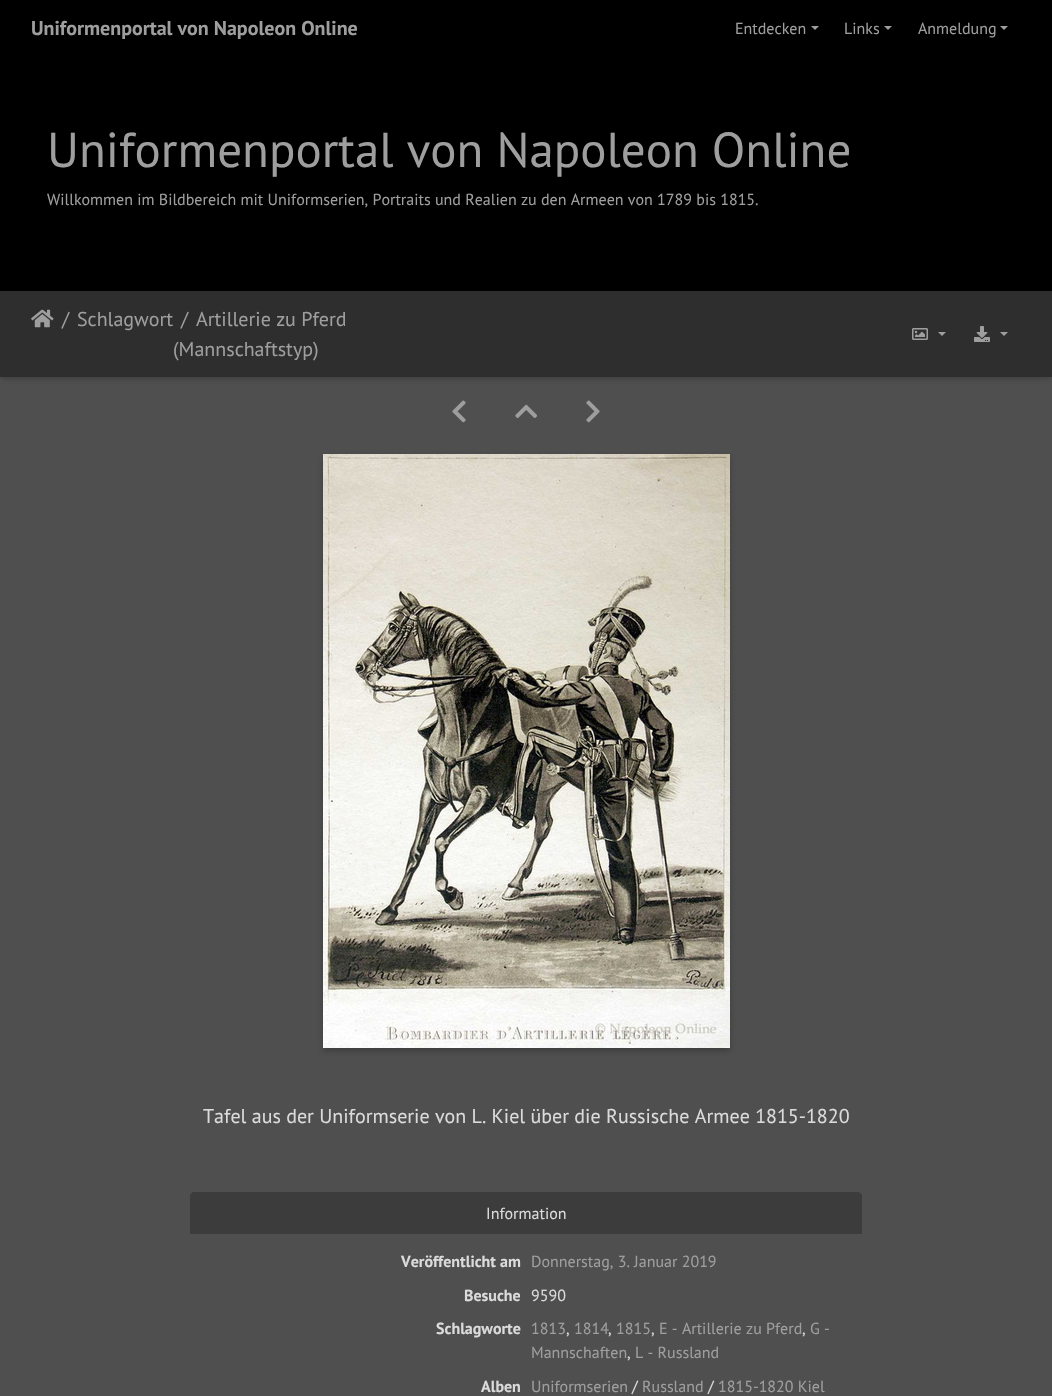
static SkFont makeFont(const char* family, int weight, float size, bool italic = false) {
  SkFontStyle style(weight, SkFontStyle::kNormal_Width,
    italic ? SkFontStyle::kItalic_Slant : SkFontStyle::kUpright_Slant);
  SkFont result(fontMgr->matchFamilyStyle(family, style), size);
  result.setSubpixel(true);
  return result;
}

static void text(SkCanvas* c, const char* s, float x, float y, const SkFont& font, SkColor color) {
  SkPaint ink(SkColor4f::FromColor(color));
  ink.setAntiAlias(true);
  c->drawString(s, x, y, font, ink);
}

static void box(SkCanvas* c, float l, float t, float r, float b, SkColor color) {
  SkPaint ink(SkColor4f::FromColor(color));
  ink.setAntiAlias(true);
  c->drawRect(SkRect::MakeLTRB(l, t, r, b), ink);
}

static void picture(SkCanvas* c, const char* path, float l, float t, float r, float b) {
  auto image = SkImages::DeferredFromEncodedData(SkData::MakeFromFileName(path));
  c->drawImageRect(image, SkRect::MakeLTRB(l, t, r, b), SkSamplingOptions());
}

void draw(SkCanvas* c) {
  SkPaint paint;
  paint.setAntiAlias(true);
  c->clear(0xff4f4f4f);
  box(c, 0, 0, 1052, 291, 0xff000000);
  SkFont face1 = makeFont("PT Sans", 700, 20);
  text(c, "Uniformenportal von Napoleon Online", 31, 35, face1, 0xff9e9e9e);
  SkFont face2 = makeFont("PT Sans", 400, 16);
  text(c, "Entdecken", 735, 34, face2, 0xff9e9e9e);
  paint.setColor(0xff9e9e9e);
  c->drawPath(SkPathBuilder().moveTo(811, 26).lineTo(819, 26).lineTo(815, 30).close().detach(), paint);
  text(c, "Links", 844, 34, face2, 0xff9e9e9e);
  c->drawPath(SkPathBuilder().moveTo(884, 26).lineTo(892, 26).lineTo(888, 30).close().detach(), paint);
  text(c, "Anmeldung", 918, 34, face2, 0xff9e9e9e);
  c->drawPath(SkPathBuilder().moveTo(1000, 26).lineTo(1008, 26).lineTo(1004, 30).close().detach(), paint);
  SkFont face3 = makeFont("PT Sans", 400, 49);
  text(c, "Uniformenportal von Napoleon Online", 47, 167, face3, 0xff9e9e9e);
  text(c, "Willkommen im Bildbereich mit Uniformserien, Portraits und Realien zu den Armeen von 1789 bis 1815.", 47, 205, face2, 0xff9e9e9e);
  paint.setColor(0x33000000);
  paint.setMaskFilter(SkMaskFilter::MakeBlur(kNormal_SkBlurStyle, 2.5f));
  c->drawRect(SkRect::MakeLTRB(1, 295, 1051, 379), paint);
  paint.setMaskFilter(nullptr);
  box(c, 0, 291, 1052, 377, 0xff2e2e2e);
  picture(c, "img_01.png", 31, 309, 54, 328);
  SkFont face4 = makeFont("PT Sans", 400, 20);
  text(c, "/", 62, 326, face4, 0xff9e9e9e);
  text(c, "Schlagwort", 77, 326, face4, 0xff9e9e9e);
  text(c, "/", 181, 326, face4, 0xff9e9e9e);
  text(c, "Artillerie zu Pferd", 196, 326, face4, 0xff9e9e9e);
  text(c, "(Mannschaftstyp)", 173, 356, face4, 0xff9e9e9e);
  picture(c, "img_02.png", 912, 328, 928, 340);
  paint.setColor(0xff9e9e9e);
  c->drawPath(SkPathBuilder().moveTo(938, 332).lineTo(946, 332).lineTo(942, 336).close().detach(), paint);
  picture(c, "img_03.png", 974, 326, 990, 342);
  c->drawPath(SkPathBuilder().moveTo(1000, 332).lineTo(1008, 332).lineTo(1004, 336).close().detach(), paint);
  picture(c, "img_04.png", 452, 400, 466, 423);
  picture(c, "img_05.png", 515, 404, 537, 418);
  picture(c, "img_06.png", 586, 400, 600, 423);
  paint.setColor(0x3b000000);
  paint.setMaskFilter(SkMaskFilter::MakeBlur(kNormal_SkBlurStyle, 3));
  c->drawRect(SkRect::MakeLTRB(323, 457, 730, 1051), paint);
  paint.setMaskFilter(nullptr);
  picture(c, "img_07.png", 323, 454, 730, 1048);
  text(c, "Tafel aus der Uniformserie von L. Kiel über die Russische Armee 1815-1820", 203, 1123, face4, 0xffdbdbdb);
  paint.setColor(0xff3c3c3c);
  c->drawPath(SkPathBuilder().moveTo(194, 1192.5f).lineTo(858, 1192.5f).cubicTo(860, 1192.5f, 861.5f, 1194, 861.5f, 1196).lineTo(861.5f, 1233.5f).lineTo(190.5f, 1233.5f).lineTo(190.5f, 1196).cubicTo(190.5f, 1194, 192, 1192.5f, 194, 1192.5f).close().detach(), paint);
  paint.setStyle(SkPaint::kStroke_Style);
  paint.setStrokeWidth(1);
  c->drawPath(SkPathBuilder().moveTo(194, 1192.5f).lineTo(858, 1192.5f).cubicTo(860, 1192.5f, 861.5f, 1194, 861.5f, 1196).lineTo(861.5f, 1233.5f).lineTo(190.5f, 1233.5f).lineTo(190.5f, 1196).cubicTo(190.5f, 1194, 192, 1192.5f, 194, 1192.5f).close().detach(), paint);
  text(c, "Information", 486, 1219, face2, 0xffdbdbdb);
  SkFont face5 = makeFont("PT Sans", 700, 16);
  text(c, "Veröffentlicht am", 401, 1267, face5, 0xffdbdbdb);
  text(c, "Donnerstag, 3. Januar 2019", 531, 1267, face2, 0xff9e9e9e);
  text(c, "Besuche", 464, 1301, face5, 0xffdbdbdb);
  text(c, "9590", 531, 1301, face2, 0xffdbdbdb);
  text(c, "Schlagworte", 436, 1334, face5, 0xffdbdbdb);
  text(c, "1813", 531, 1334, face2, 0xff9e9e9e);
  text(c, ",", 566, 1334, face2, 0xffdbdbdb);
  text(c, "1814", 574, 1334, face2, 0xff9e9e9e);
  text(c, ",", 608, 1334, face2, 0xffdbdbdb);
  text(c, "1815", 616, 1334, face2, 0xff9e9e9e);
  text(c, ",", 651, 1334, face2, 0xffdbdbdb);
  text(c, "E - Artillerie zu Pferd", 659, 1334, face2, 0xff9e9e9e);
  text(c, ",", 802, 1334, face2, 0xffdbdbdb);
  text(c, "G -", 810, 1334, face2, 0xff9e9e9e);
  text(c, "Mannschaften", 531, 1358, face2, 0xff9e9e9e);
  text(c, ",", 627, 1358, face2, 0xffdbdbdb);
  text(c, "L - Russland", 635, 1358, face2, 0xff9e9e9e);
  text(c, "Alben", 481, 1392, face5, 0xffdbdbdb);
  text(c, "Uniformserien", 531, 1392, face2, 0xff9e9e9e);
  text(c, "/", 632, 1392, face2, 0xffdbdbdb);
  text(c, "Russland", 642, 1392, face2, 0xff9e9e9e);
  text(c, "/", 708, 1392, face2, 0xffdbdbdb);
  text(c, "1815-1820 Kiel", 718, 1392, face2, 0xff9e9e9e);
}
